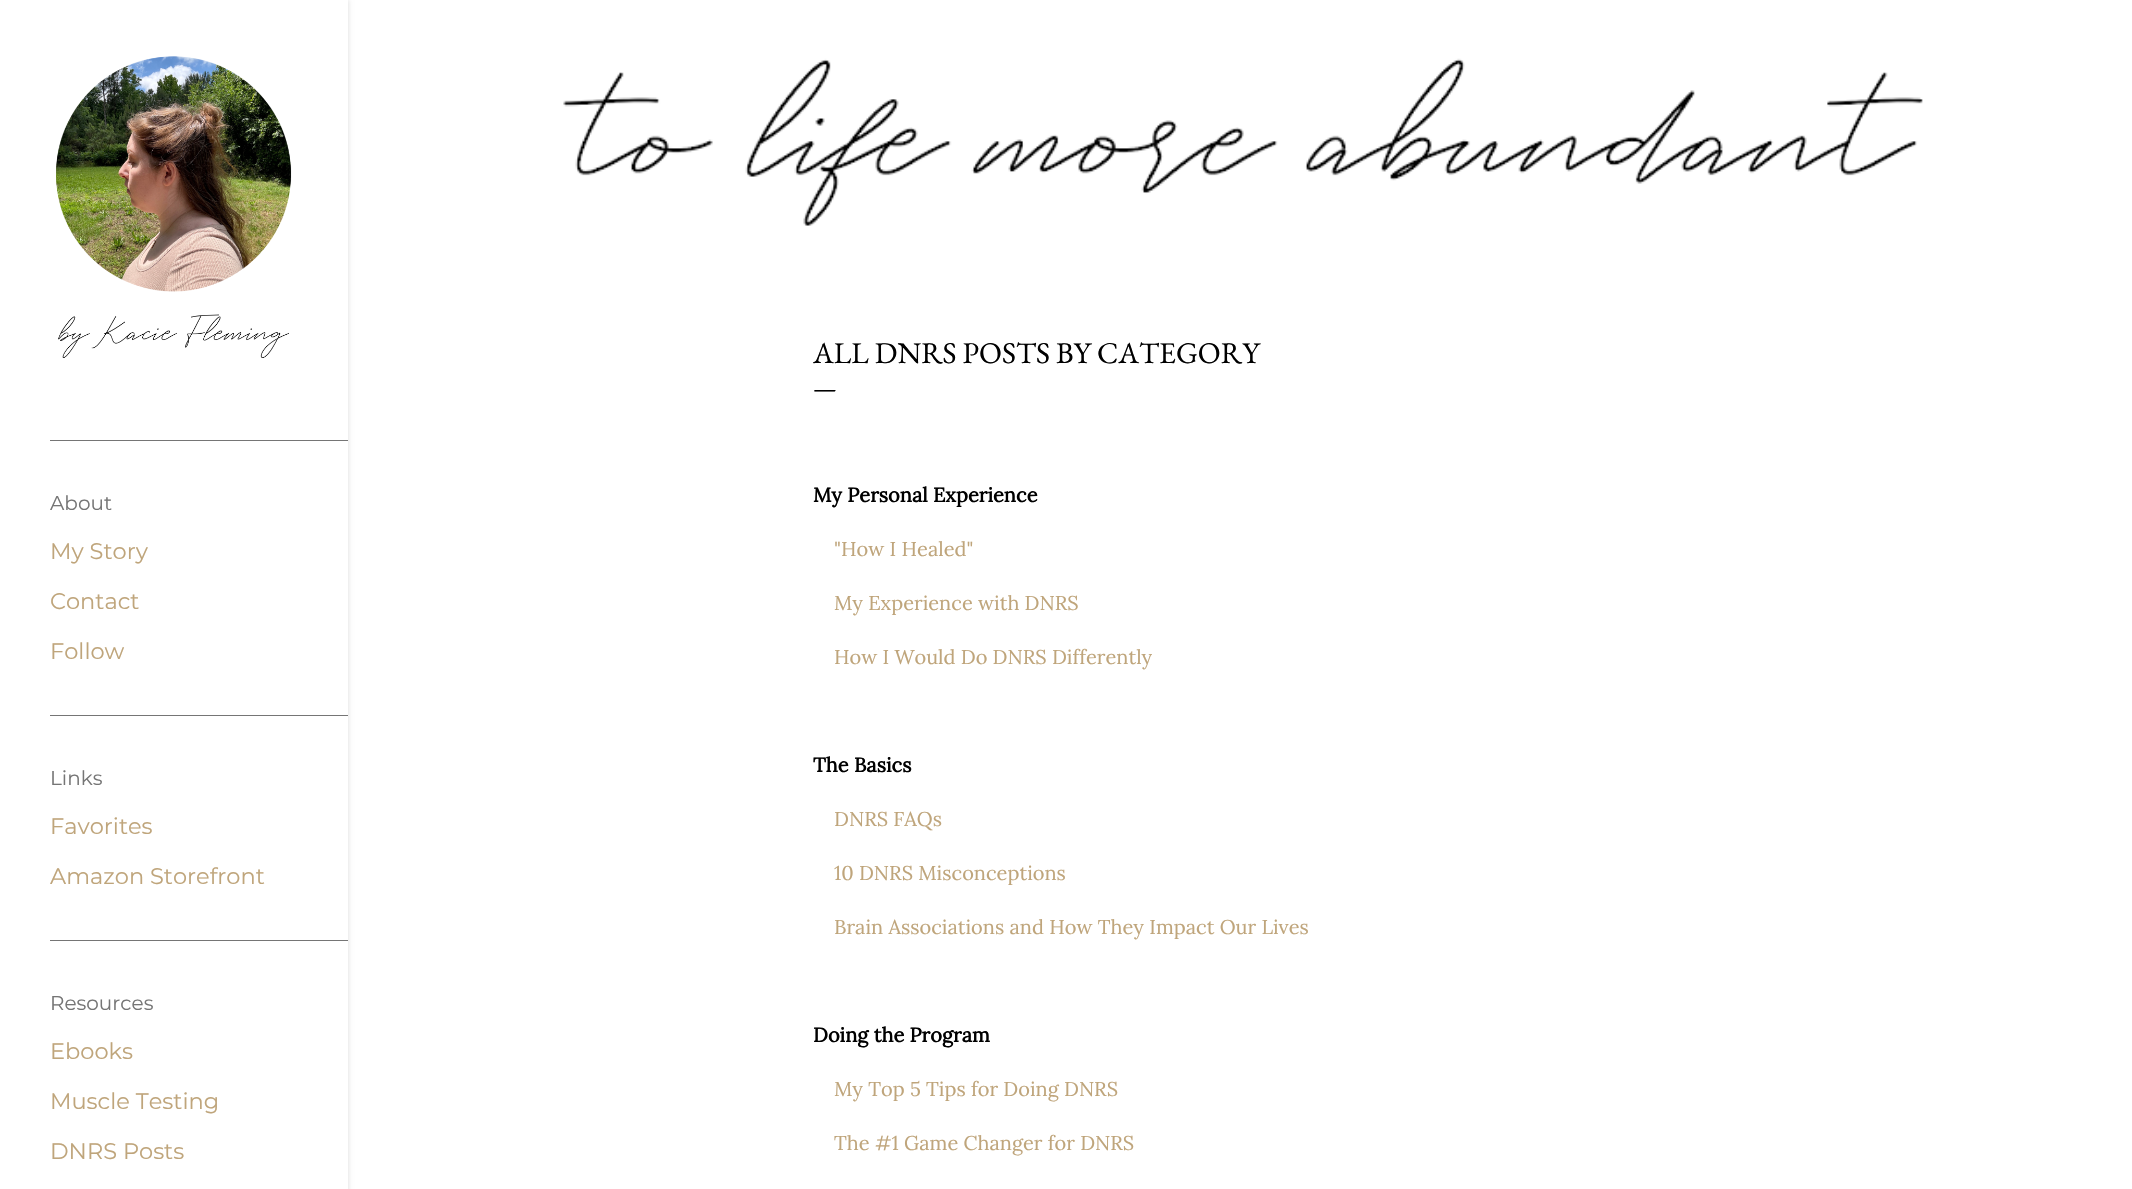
static SkFont makeFont(const char* family, int weight, float size, bool italic = false) {
  SkFontStyle style(weight, SkFontStyle::kNormal_Width,
    italic ? SkFontStyle::kItalic_Slant : SkFontStyle::kUpright_Slant);
  SkFont result(fontMgr->matchFamilyStyle(family, style), size);
  result.setSubpixel(true);
  return result;
}

static void text(SkCanvas* c, const char* s, float x, float y, const SkFont& font, SkColor color) {
  SkPaint ink(SkColor4f::FromColor(color));
  ink.setAntiAlias(true);
  c->drawString(s, x, y, font, ink);
}

static void box(SkCanvas* c, float l, float t, float r, float b, SkColor color) {
  SkPaint ink(SkColor4f::FromColor(color));
  ink.setAntiAlias(true);
  c->drawRect(SkRect::MakeLTRB(l, t, r, b), ink);
}

static void picture(SkCanvas* c, const char* path, float l, float t, float r, float b) {
  auto image = SkImages::DeferredFromEncodedData(SkData::MakeFromFileName(path));
  c->drawImageRect(image, SkRect::MakeLTRB(l, t, r, b), SkSamplingOptions());
}

void draw(SkCanvas* c) {
  SkPaint paint;
  paint.setAntiAlias(true);
  c->clear(0xffffffff);
  paint.setColor(0x1a000000);
  paint.setMaskFilter(SkMaskFilter::MakeBlur(kNormal_SkBlurStyle, 2));
  c->drawRect(SkRect::MakeLTRB(1, 0, 349, 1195), paint);
  paint.setMaskFilter(nullptr);
  box(c, 0, 0, 348, 1189, 0xffffffff);
  picture(c, "img_01.png", 56, 56, 292, 358);
  box(c, 50, 440, 348, 441, 0xff757575);
  SkFont face1 = makeFont("Montserrat", 400, 20);
  text(c, "About", 50, 510, face1, 0xff757575);
  SkFont face2 = makeFont("Montserrat", 400, 22.5f);
  text(c, "My Story", 50, 559, face2, 0xffbfa57b);
  text(c, "Contact", 50, 609, face2, 0xffbfa57b);
  text(c, "Follow", 50, 659, face2, 0xffbfa57b);
  box(c, 50, 715, 348, 716, 0xff757575);
  text(c, "Links", 50, 785, face1, 0xff757575);
  text(c, "Favorites", 50, 834, face2, 0xffbfa57b);
  text(c, "Amazon Storefront", 50, 884, face2, 0xffbfa57b);
  box(c, 50, 940, 348, 941, 0xff757575);
  text(c, "Resources", 50, 1010, face1, 0xff757575);
  text(c, "Ebooks", 50, 1059, face2, 0xffbfa57b);
  text(c, "Muscle Testing", 50, 1109, face2, 0xffbfa57b);
  text(c, "DNRS Posts", 50, 1159, face2, 0xffbfa57b);
  picture(c, "img_02.png", 563, 58, 1923, 226);
  SkFont face3 = makeFont("EB Garamond", 400, 30);
  text(c, "ALL DNRS POSTS BY CATEGORY", 813, 363, face3, 0xff000000);
  SkFont face4 = makeFont("EB Garamond", 400, 25);
  text(c, "—", 813, 396, face4, 0xff000000);
  SkFont face5 = makeFont("Lora", 700, 20);
  text(c, "My Personal Experience", 813, 502, face5, 0xff000000);
  SkFont face6 = makeFont("Lora", 400, 20);
  text(c, "\"How I Healed\"", 834, 556, face6, 0xffbfa57b);
  text(c, "My Experience with DNRS", 834, 610, face6, 0xffbfa57b);
  text(c, "How I Would Do DNRS Differently", 834, 664, face6, 0xffbfa57b);
  text(c, "The Basics", 813, 772, face5, 0xff000000);
  text(c, "DNRS FAQs", 834, 826, face6, 0xffbfa57b);
  text(c, "10 DNRS Misconceptions", 834, 880, face6, 0xffbfa57b);
  text(c, "Brain Associations and How They Impact Our Lives", 834, 934, face6, 0xffbfa57b);
  text(c, "Doing the Program", 813, 1042, face5, 0xff000000);
  text(c, "My Top 5 Tips for Doing DNRS", 834, 1096, face6, 0xffbfa57b);
  text(c, "The #1 Game Changer for DNRS", 834, 1150, face6, 0xffbfa57b);
}
